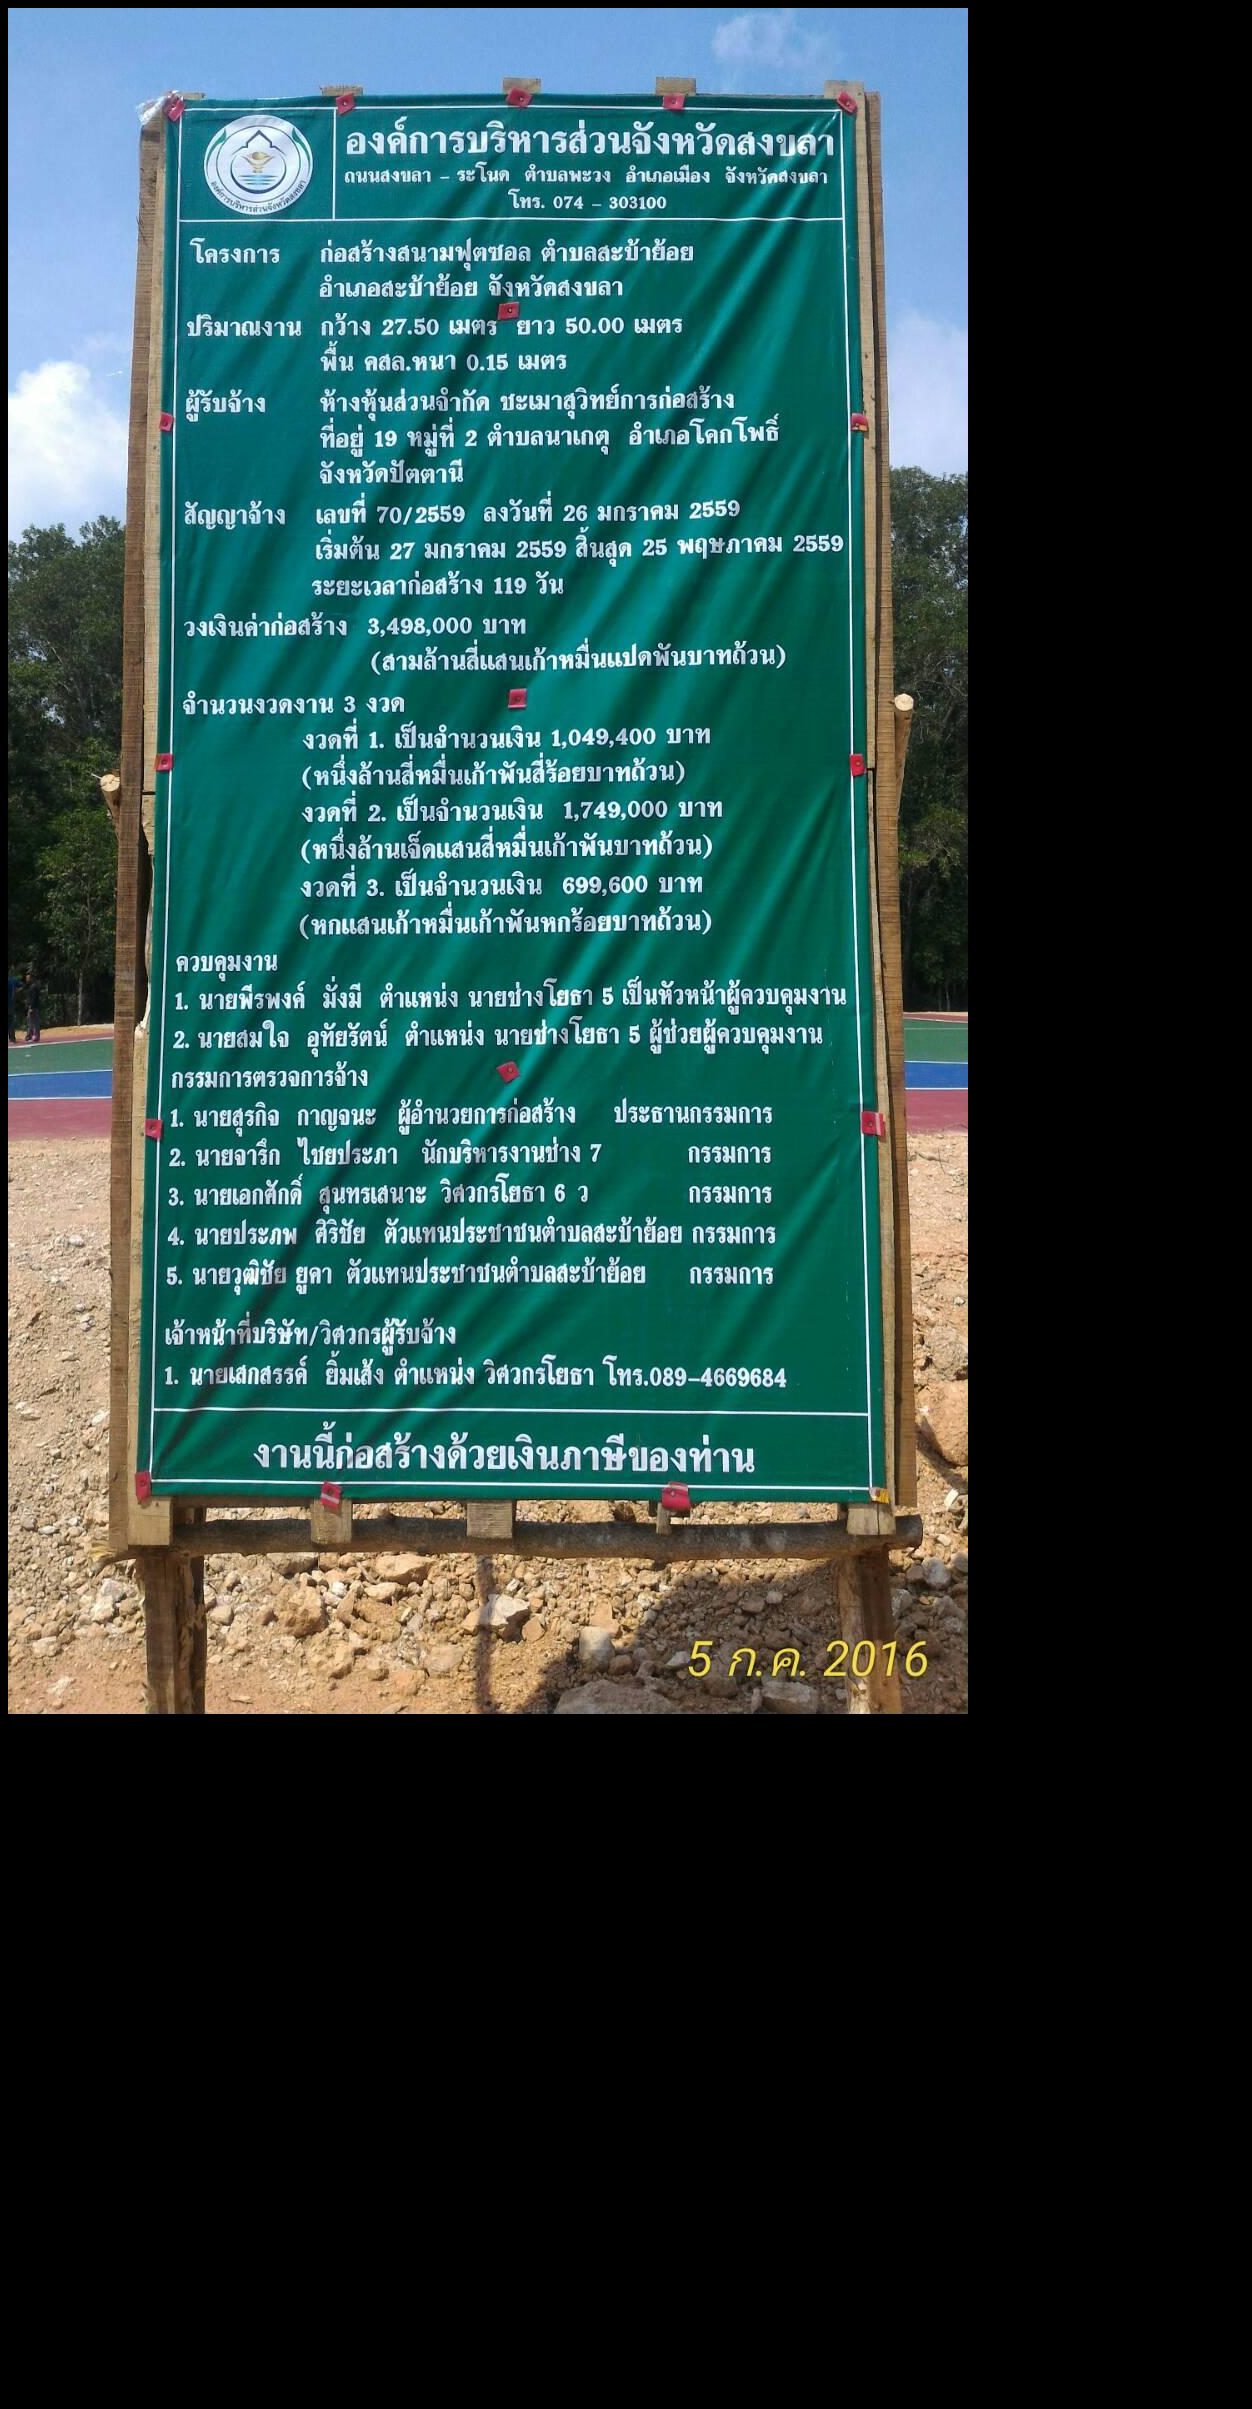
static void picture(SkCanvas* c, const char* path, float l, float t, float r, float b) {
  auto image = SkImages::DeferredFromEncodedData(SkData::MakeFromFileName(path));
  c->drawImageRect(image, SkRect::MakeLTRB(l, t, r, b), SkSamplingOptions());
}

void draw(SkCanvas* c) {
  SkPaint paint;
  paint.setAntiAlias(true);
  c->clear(0xff000000);
  picture(c, "img_01.png", 8, 8, 968, 1714);
}
